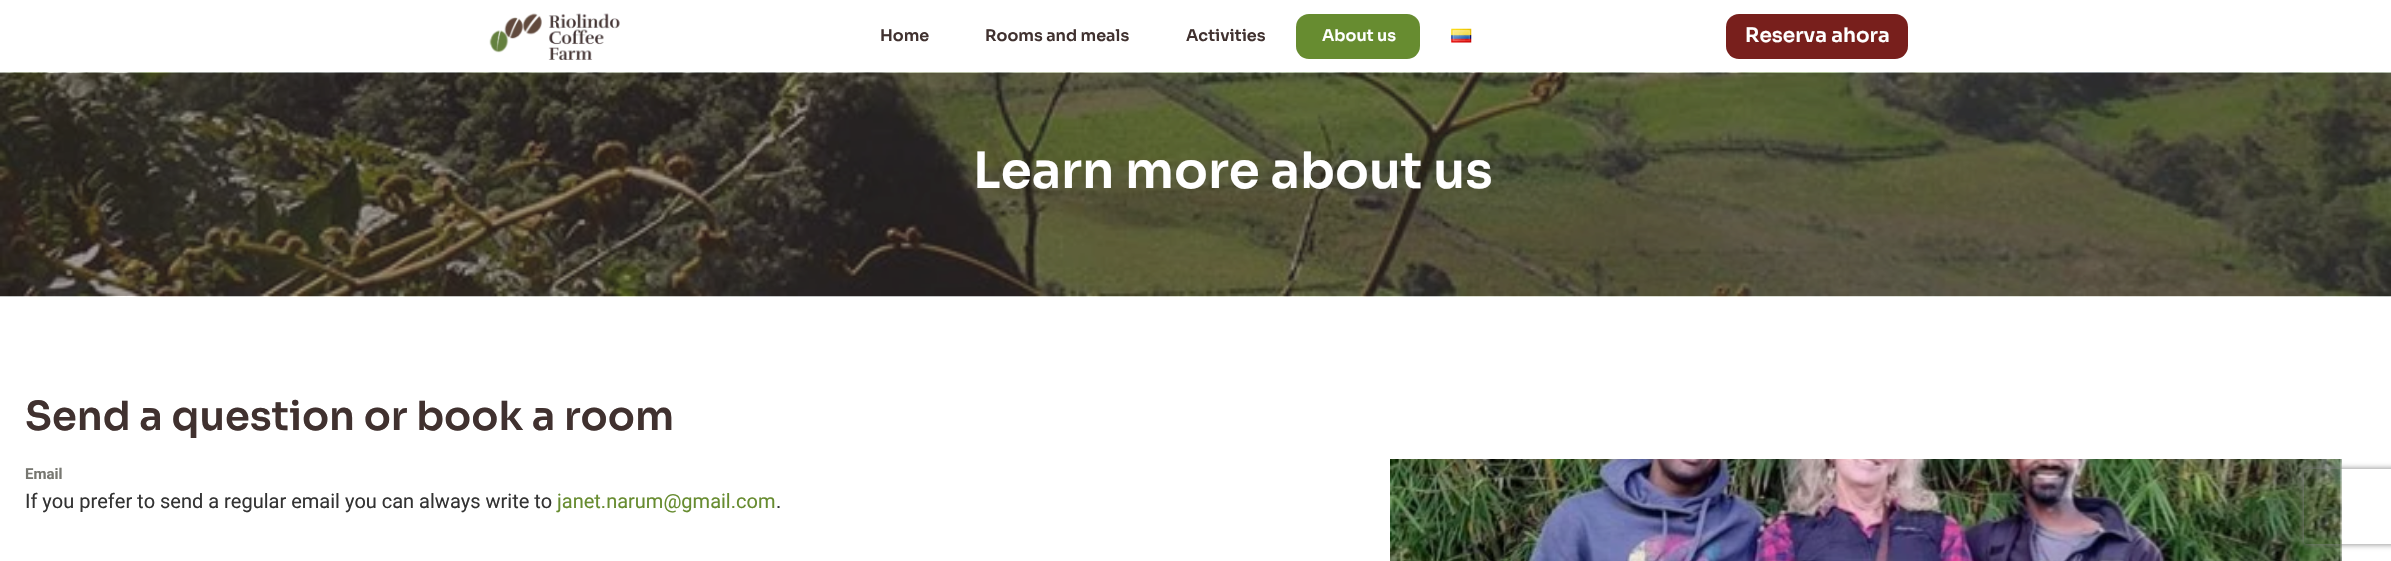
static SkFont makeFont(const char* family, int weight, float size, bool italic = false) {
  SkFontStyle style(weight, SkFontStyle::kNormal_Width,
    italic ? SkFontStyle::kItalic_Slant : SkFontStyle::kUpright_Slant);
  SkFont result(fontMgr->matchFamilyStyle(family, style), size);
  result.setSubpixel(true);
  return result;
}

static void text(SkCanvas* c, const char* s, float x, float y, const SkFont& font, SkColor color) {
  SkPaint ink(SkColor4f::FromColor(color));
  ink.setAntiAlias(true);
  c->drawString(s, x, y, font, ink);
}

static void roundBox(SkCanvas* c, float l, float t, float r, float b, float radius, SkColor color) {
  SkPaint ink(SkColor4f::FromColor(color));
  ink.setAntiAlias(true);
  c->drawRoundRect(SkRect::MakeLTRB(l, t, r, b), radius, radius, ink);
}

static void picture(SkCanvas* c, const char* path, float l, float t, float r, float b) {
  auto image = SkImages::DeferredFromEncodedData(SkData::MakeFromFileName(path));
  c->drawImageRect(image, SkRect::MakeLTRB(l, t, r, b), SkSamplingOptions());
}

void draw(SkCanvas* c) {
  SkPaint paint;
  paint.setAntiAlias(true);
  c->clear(0xffffffff);
  picture(c, "img_01.png", 489, 13, 620, 60);
  SkFont face1 = makeFont("Sora", 600, 16);
  text(c, "Home", 880, 41, face1, 0xff40312f);
  text(c, "Rooms and meals", 985, 41, face1, 0xff40312f);
  text(c, "Activities", 1186, 41, face1, 0xff40312f);
  roundBox(c, 1296, 14, 1420, 59, 13, 0xff678c30);
  text(c, "About us", 1322, 41, face1, 0xffffffff);
  picture(c, "img_02.png", 1451, 28, 1472, 43);
  roundBox(c, 1726, 14, 1908, 59, 13, 0xff781f1c);
  SkFont face2 = makeFont("Sora", 600, 20);
  text(c, "Reserva ahora", 1745, 42, face2, 0xffffffff);
  picture(c, "img_03.png", 0, 72, 2391, 297);
  SkFont face3 = makeFont("Sora", 600, 50);
  text(c, "Learn more about us", 973, 188, face3, 0xffffffff);
  SkFont face4 = makeFont("Sora", 600, 40);
  text(c, "Send a question or book a room", 25, 430, face4, 0xff40312f);
  SkFont face5 = makeFont("Roboto", 700, 15);
  text(c, "Email", 25, 479, face5, 0xff777771);
  SkFont face6 = makeFont("Roboto", 400, 20);
  text(c, "If you prefer to send a regular email you can always write to", 25, 508, face6, 0xff333333);
  text(c, "janet.narum@gmail.com", 557, 508, face6, 0xff678c30);
  text(c, ".", 776, 508, face6, 0xff333333);
  picture(c, "img_04.png", 1390, 459, 2342, 561);
  c->save();
  c->clipPath(SkPathBuilder(SkPathFillType::kEvenOdd).moveTo(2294, 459).lineTo(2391, 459).lineTo(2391, 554).lineTo(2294, 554).close().moveTo(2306.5f, 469).lineTo(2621.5f, 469).cubicTo(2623, 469, 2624, 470, 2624, 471.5f).lineTo(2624, 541.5f).cubicTo(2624, 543, 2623, 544, 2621.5f, 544).lineTo(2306.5f, 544).cubicTo(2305, 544, 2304, 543, 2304, 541.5f).lineTo(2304, 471.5f).cubicTo(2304, 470, 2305, 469, 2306.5f, 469).close().detach(), true);
  paint.setColor(0xff808080);
  paint.setMaskFilter(SkMaskFilter::MakeBlur(kNormal_SkBlurStyle, 3));
  c->drawRoundRect(SkRect::MakeLTRB(2304, 469, 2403, 544), 2.5f, 2.5f, paint);
  paint.setMaskFilter(nullptr);
  c->restore();
}
